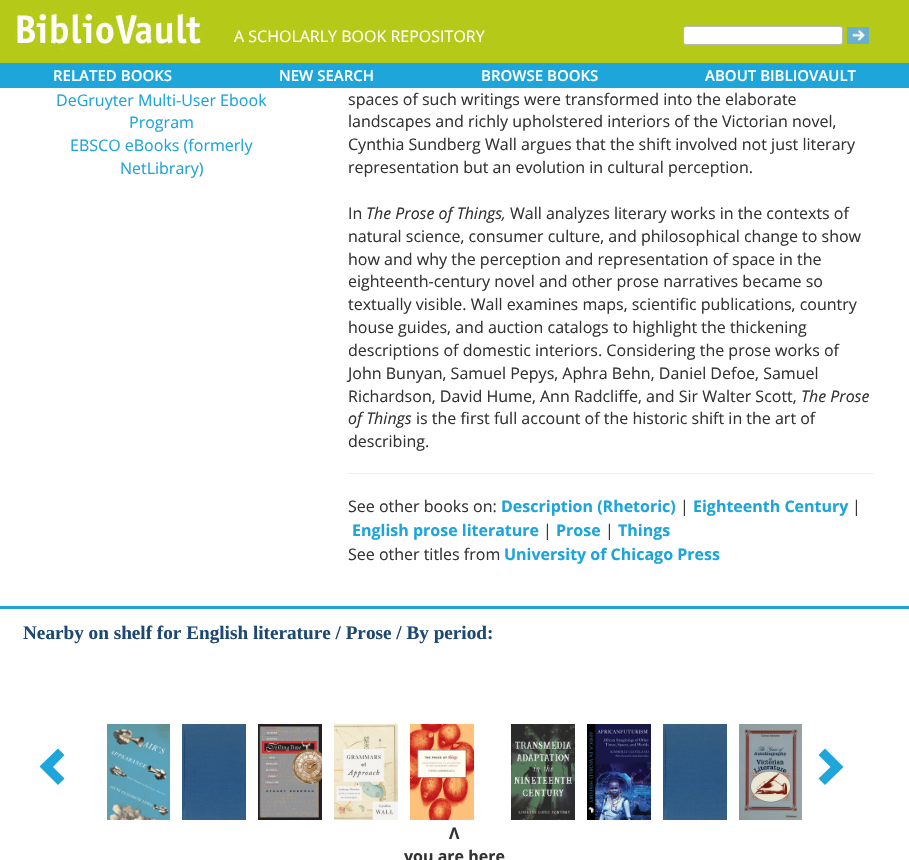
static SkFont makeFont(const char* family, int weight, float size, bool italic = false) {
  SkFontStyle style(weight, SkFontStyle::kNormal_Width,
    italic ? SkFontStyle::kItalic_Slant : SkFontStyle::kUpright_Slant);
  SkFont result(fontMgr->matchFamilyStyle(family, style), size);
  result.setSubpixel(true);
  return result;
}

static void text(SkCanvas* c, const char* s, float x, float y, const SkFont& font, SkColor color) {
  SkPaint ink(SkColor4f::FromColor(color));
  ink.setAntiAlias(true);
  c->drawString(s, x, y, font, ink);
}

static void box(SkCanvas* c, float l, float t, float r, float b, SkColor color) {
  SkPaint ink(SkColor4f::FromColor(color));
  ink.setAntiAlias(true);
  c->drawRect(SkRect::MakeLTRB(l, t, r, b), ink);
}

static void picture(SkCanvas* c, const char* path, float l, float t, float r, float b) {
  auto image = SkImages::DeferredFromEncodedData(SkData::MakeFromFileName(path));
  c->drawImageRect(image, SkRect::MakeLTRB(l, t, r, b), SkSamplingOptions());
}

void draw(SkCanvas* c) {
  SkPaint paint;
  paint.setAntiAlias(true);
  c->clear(0xffffffff);
  box(c, 0, 0, 909, 63, 0xffb5c918);
  picture(c, "img_01.png", 15, 11, 203, 50);
  SkFont face1 = makeFont("Open Sans", 400, 16);
  text(c, "A SCHOLARLY BOOK REPOSITORY", 234, 42, face1, 0xffffffff);
  paint.setColor(0xffffffff);
  c->drawRoundRect(SkRect::MakeLTRB(683.5f, 26.5f, 842.5f, 44.5f), 2.5f, 2.5f, paint);
  paint.setStyle(SkPaint::kStroke_Style);
  paint.setStrokeWidth(1);
  paint.setColor(0xffbababa);
  c->drawRoundRect(SkRect::MakeLTRB(683.5f, 26.5f, 842.5f, 44.5f), 2.5f, 2.5f, paint);
  picture(c, "img_02.png", 847, 27, 869, 44);
  box(c, 0, 63, 909, 88, 0xff1ea6db);
  SkFont face2 = makeFont("Open Sans", 600, 15);
  text(c, "RELATED BOOKS", 53, 81, face2, 0xffffffff);
  text(c, "NEW SEARCH", 279, 81, face2, 0xffffffff);
  text(c, "BROWSE BOOKS", 481, 81, face2, 0xffffffff);
  text(c, "ABOUT BIBLIOVAULT", 705, 81, face2, 0xffffffff);
  text(c, "DeGruyter Multi-User Ebook", 56, 106, face1, 0xff1ca4db);
  text(c, "Program", 129, 128, face1, 0xff1ca4db);
  text(c, "EBSCO eBooks (formerly", 70, 151, face1, 0xff1ca4db);
  text(c, "NetLibrary)", 120, 174, face1, 0xff1ca4db);
  text(c, "spaces of such writings were transformed into the elaborate", 348, 105, face1, 0xff333333);
  text(c, "landscapes and richly upholstered interiors of the Victorian novel,", 348, 127, face1, 0xff333333);
  text(c, "Cynthia Sundberg Wall argues that the shift involved not just literary", 348, 150, face1, 0xff333333);
  text(c, "representation but an evolution in cultural perception.", 348, 173, face1, 0xff333333);
  text(c, "In", 348, 219, face1, 0xff333333);
  SkFont face3 = makeFont("Open Sans", 400, 16, true);
  text(c, "The Prose of Things,", 366, 219, face3, 0xff333333);
  text(c, "Wall analyzes literary works in the contexts of", 510, 219, face1, 0xff333333);
  text(c, "natural science, consumer culture, and philosophical change to show", 348, 242, face1, 0xff333333);
  text(c, "how and why the perception and representation of space in the", 348, 265, face1, 0xff333333);
  text(c, "eighteenth-century novel and other prose narratives became so", 348, 287, face1, 0xff333333);
  text(c, "textually visible. Wall examines maps, scientific publications, country", 348, 310, face1, 0xff333333);
  text(c, "house guides, and auction catalogs to highlight the thickening", 348, 333, face1, 0xff333333);
  text(c, "descriptions of domestic interiors. Considering the prose works of", 348, 356, face1, 0xff333333);
  text(c, "John Bunyan, Samuel Pepys, Aphra Behn, Daniel Defoe, Samuel", 348, 379, face1, 0xff333333);
  text(c, "Richardson, David Hume, Ann Radcliffe, and Sir Walter Scott,", 348, 402, face1, 0xff333333);
  text(c, "The Prose", 801, 402, face3, 0xff333333);
  text(c, "of Things", 348, 424, face3, 0xff333333);
  text(c, "is the first full account of the historic shift in the art of", 416, 424, face1, 0xff333333);
  text(c, "describing.", 348, 447, face1, 0xff333333);
  box(c, 348, 473, 874, 474, 0xffeeeeee);
  text(c, "See other books on:", 348, 512, face1, 0xff333333);
  SkFont face4 = makeFont("Open Sans", 700, 16);
  text(c, "Description (Rhetoric)", 501, 512, face4, 0xff1ca4db);
  text(c, "|", 680, 512, face1, 0xff333333);
  text(c, "Eighteenth Century", 693, 512, face4, 0xff1ca4db);
  text(c, "|", 852, 512, face1, 0xff333333);
  text(c, "English prose literature", 352, 536, face4, 0xff1ca4db);
  text(c, "|", 543, 536, face1, 0xff333333);
  text(c, "Prose", 556, 536, face4, 0xff1ca4db);
  text(c, "|", 605, 536, face1, 0xff333333);
  text(c, "Things", 618, 536, face4, 0xff1ca4db);
  text(c, "See other titles from", 348, 560, face1, 0xff333333);
  text(c, "University of Chicago Press", 504, 560, face4, 0xff1ca4db);
  box(c, 0, 606, 909, 609, 0xff1ea6db);
  SkFont face5 = makeFont("Liberation Serif", 700, 19.2f);
  text(c, "Nearby on shelf for English literature / Prose / By period:", 23, 639, face5, 0xff1d4873);
  paint.setStyle(SkPaint::kFill_Style);
  paint.setColor(0xff1ea6db);
  c->drawPath(SkPathBuilder().moveTo(64.5f, 755).lineTo(53, 767).lineTo(64.5f, 778.5f).lineTo(58, 785).lineTo(39.5f, 766.5f).lineTo(58, 748.5f).close().detach(), paint);
  c->drawPath(SkPathBuilder().moveTo(843.5f, 767).lineTo(825, 785).lineTo(818.5f, 778.5f).lineTo(830.5f, 767).lineTo(818.5f, 755).lineTo(825, 748.5f).close().detach(), paint);
  picture(c, "img_03.png", 107, 724, 170, 820);
  picture(c, "img_04.png", 182, 724, 246, 820);
  picture(c, "img_05.png", 258, 724, 322, 820);
  picture(c, "img_06.png", 334, 724, 398, 820);
  picture(c, "img_07.png", 410, 724, 474, 820);
  picture(c, "img_08.png", 511, 724, 575, 820);
  picture(c, "img_09.png", 587, 724, 651, 820);
  picture(c, "img_04.png", 663, 724, 727, 820);
  picture(c, "img_10.png", 739, 724, 802, 820);
  text(c, "Λ", 449, 839, face4, 0xff333333);
  text(c, "you are here", 404, 862, face4, 0xff333333);
}
